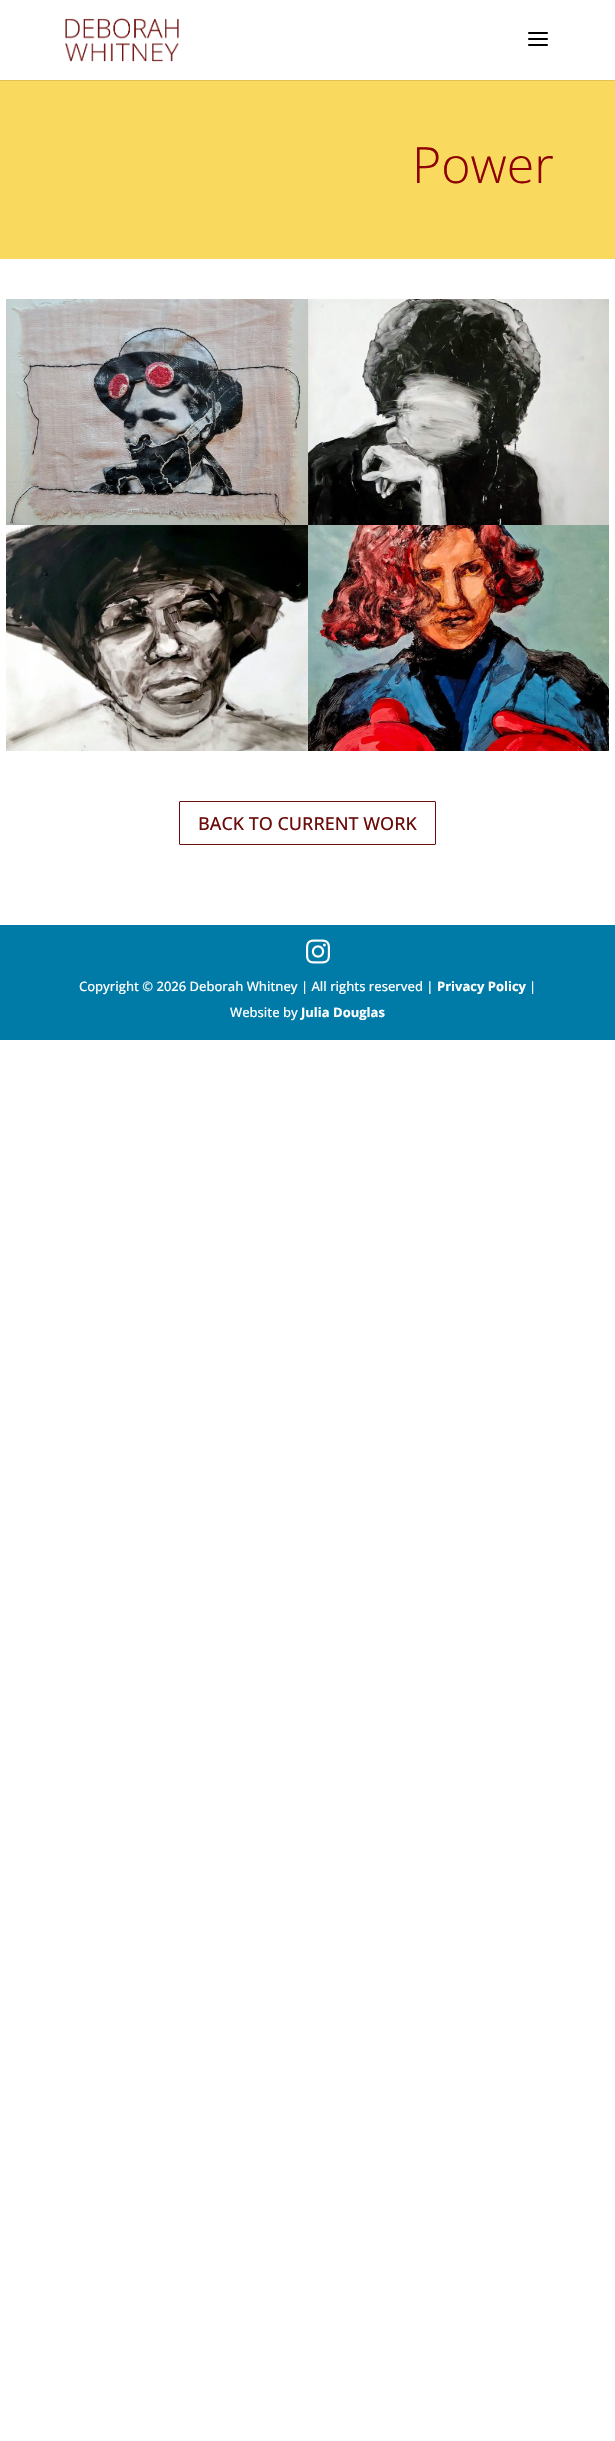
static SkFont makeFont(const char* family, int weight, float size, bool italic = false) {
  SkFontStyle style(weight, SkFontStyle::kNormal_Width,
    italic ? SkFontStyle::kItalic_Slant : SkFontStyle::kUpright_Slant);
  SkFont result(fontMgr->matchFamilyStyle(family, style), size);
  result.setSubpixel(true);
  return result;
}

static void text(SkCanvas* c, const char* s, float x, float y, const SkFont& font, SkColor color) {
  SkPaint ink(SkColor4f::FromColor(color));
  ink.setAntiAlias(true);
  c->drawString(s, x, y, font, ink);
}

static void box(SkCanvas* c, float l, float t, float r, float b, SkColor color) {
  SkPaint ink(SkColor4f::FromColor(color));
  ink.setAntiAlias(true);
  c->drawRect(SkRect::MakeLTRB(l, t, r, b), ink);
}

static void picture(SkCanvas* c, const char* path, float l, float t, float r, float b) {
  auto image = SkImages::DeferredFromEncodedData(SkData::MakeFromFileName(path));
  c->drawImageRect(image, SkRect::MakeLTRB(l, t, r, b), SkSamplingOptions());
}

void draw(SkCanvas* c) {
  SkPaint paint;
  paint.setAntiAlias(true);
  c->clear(0xffffffff);
  box(c, 0, 80, 615, 81, 0xffe1c455);
  picture(c, "img_01.png", 65, 18, 179, 62);
  picture(c, "img_02.png", 528, 32, 548, 46);
  box(c, 0, 81, 615, 259, 0xfffada5e);
  SkFont face1 = makeFont("Open Sans", 300, 50);
  text(c, "Power", 412, 183, face1, 0xff8e0203);
  picture(c, "img_03.png", 6, 299, 308, 525);
  picture(c, "img_04.png", 308, 299, 609, 525);
  picture(c, "img_05.png", 6, 525, 308, 751);
  picture(c, "img_06.png", 308, 525, 609, 751);
  paint.setStyle(SkPaint::kStroke_Style);
  paint.setStrokeWidth(1);
  paint.setColor(0xff6b0d0b);
  c->drawRoundRect(SkRect::MakeLTRB(179.5f, 801.5f, 435.5f, 844.5f), 0.5f, 0.5f, paint);
  SkFont face2 = makeFont("Open Sans", 500, 18);
  text(c, "BACK TO CURRENT WORK", 198, 830, face2, 0xff6b0d0b);
  box(c, 0, 925, 615, 1040, 0xff007ba7);
  picture(c, "img_07.png", 306, 939, 330, 964);
  SkFont face3 = makeFont("Open Sans", 500, 13);
  text(c, "Copyright © 2026 Deborah Whitney | All rights reserved |", 79, 991, face3, 0xffffffff);
  SkFont face4 = makeFont("Open Sans", 700, 13);
  text(c, "Privacy Policy", 437, 991, face4, 0xffffffff);
  text(c, "|", 529, 991, face3, 0xffffffff);
  text(c, "Website by", 230, 1017, face3, 0xffffffff);
  text(c, "Julia Douglas", 301, 1017, face4, 0xffffffff);
}
